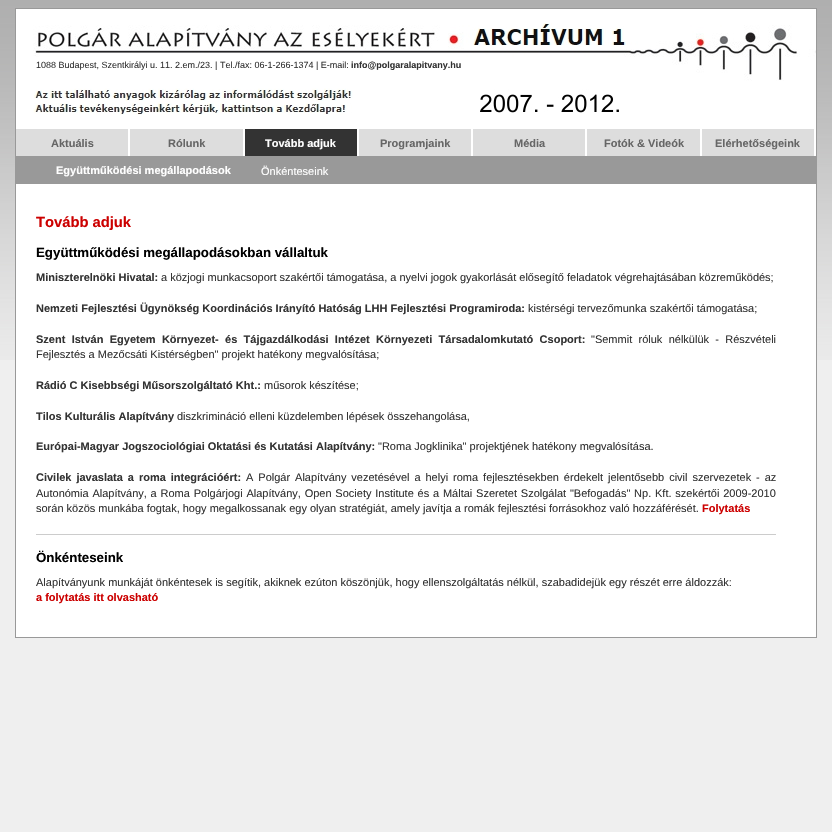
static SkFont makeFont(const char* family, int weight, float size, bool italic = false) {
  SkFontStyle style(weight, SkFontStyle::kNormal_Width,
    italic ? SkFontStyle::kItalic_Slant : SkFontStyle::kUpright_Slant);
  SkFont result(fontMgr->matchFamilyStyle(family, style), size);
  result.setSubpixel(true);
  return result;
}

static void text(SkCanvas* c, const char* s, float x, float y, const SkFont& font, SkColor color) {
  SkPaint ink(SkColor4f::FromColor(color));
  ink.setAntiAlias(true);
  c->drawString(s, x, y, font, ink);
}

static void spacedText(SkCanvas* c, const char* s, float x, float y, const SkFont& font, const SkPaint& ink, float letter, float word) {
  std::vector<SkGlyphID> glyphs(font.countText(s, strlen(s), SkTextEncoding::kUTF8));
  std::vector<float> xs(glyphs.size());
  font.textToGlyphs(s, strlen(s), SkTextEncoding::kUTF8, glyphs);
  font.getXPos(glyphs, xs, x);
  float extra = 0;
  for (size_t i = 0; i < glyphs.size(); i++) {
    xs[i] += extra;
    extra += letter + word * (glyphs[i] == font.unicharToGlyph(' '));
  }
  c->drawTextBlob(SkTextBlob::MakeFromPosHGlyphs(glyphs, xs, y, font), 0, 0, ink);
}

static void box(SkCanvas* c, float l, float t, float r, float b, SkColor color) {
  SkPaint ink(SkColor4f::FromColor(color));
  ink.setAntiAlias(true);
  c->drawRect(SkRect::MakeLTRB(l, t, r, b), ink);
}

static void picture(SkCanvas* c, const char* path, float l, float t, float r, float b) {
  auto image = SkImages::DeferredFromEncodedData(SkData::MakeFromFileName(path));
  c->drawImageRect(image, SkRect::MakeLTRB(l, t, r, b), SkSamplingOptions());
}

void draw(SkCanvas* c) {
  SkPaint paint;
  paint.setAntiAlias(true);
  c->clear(0xffefefef);
  picture(c, "img_01.png", 0, 0, 832, 360);
  paint.setColor(0xffffffff);
  c->drawRect(SkRect::MakeLTRB(15.5f, 8.5f, 816.5f, 637.5f), paint);
  paint.setStyle(SkPaint::kStroke_Style);
  paint.setStrokeWidth(1);
  paint.setColor(0xff999999);
  c->drawRect(SkRect::MakeLTRB(15.5f, 8.5f, 816.5f, 637.5f), paint);
  picture(c, "img_02.png", 33, 23, 816, 115);
  SkFont face1 = makeFont("Liberation Sans", 400, 9);
  text(c, "1088 Budapest, Szentkirályi u. 11. 2.em./23. | Tel./fax: 06-1-266-1374 | E-mail:", 36, 68, face1, 0xff333333);
  SkFont face2 = makeFont("Liberation Sans", 700, 9);
  text(c, "info@polgaralapitvany.hu", 351, 68, face2, 0xff333333);
  box(c, 16, 129, 128, 156, 0xffdddddd);
  SkFont face3 = makeFont("Liberation Sans", 700, 11);
  text(c, "Aktuális", 51, 147, face3, 0xff666666);
  box(c, 130, 129, 243, 156, 0xffdddddd);
  text(c, "Rólunk", 168, 147, face3, 0xff666666);
  box(c, 245, 129, 357, 156, 0xff333333);
  text(c, "Tovább adjuk", 265, 147, face3, 0xffffffff);
  box(c, 359, 129, 471, 156, 0xffdddddd);
  text(c, "Programjaink", 380, 147, face3, 0xff666666);
  box(c, 473, 129, 585, 156, 0xffdddddd);
  text(c, "Média", 514, 147, face3, 0xff666666);
  box(c, 587, 129, 700, 156, 0xffdddddd);
  text(c, "Fotók & Videók", 604, 147, face3, 0xff666666);
  box(c, 702, 129, 814, 156, 0xffdddddd);
  text(c, "Elérhetőségeink", 715, 147, face3, 0xff666666);
  box(c, 16, 156, 816, 184, 0xff999999);
  text(c, "Együttműködési megállapodások", 56, 174, face3, 0xffffffff);
  SkFont face4 = makeFont("Liberation Sans", 400, 11);
  text(c, "Önkénteseink", 261, 175, face4, 0xffffffff);
  SkFont face5 = makeFont("Liberation Sans", 700, 14.75f);
  text(c, "Tovább adjuk", 36, 227, face5, 0xffcc0000);
  SkFont face6 = makeFont("Liberation Sans", 700, 13.3f);
  text(c, "Együttműködési megállapodásokban vállaltuk", 36, 257, face6, 0xff000000);
  box(c, 36, 534, 776, 535, 0xffcccccc);
  text(c, "Miniszterelnöki Hivatal:", 36, 281, face3, 0xff333333);
  text(c, "a közjogi munkacsoport szakértői támogatása, a nyelvi jogok gyakorlását elősegítő feladatok végrehajtásában közreműködés;", 161, 281, face4, 0xff333333);
  text(c, "Nemzeti Fejlesztési Ügynökség Koordinációs Irányító Hatóság LHH Fejlesztési Programiroda:", 36, 312, face3, 0xff333333);
  text(c, "kistérségi tervezőmunka szakértői támogatása;", 528, 312, face4, 0xff333333);
  paint.setStyle(SkPaint::kFill_Style);
  paint.setColor(0xff333333);
  spacedText(c, "Szent István Egyetem Környezet- és Tájgazdálkodási Intézet Környezeti Társadalomkutató Csoport:", 36, 343, face3, paint, 0, 3.25f);
  spacedText(c, "\"Semmit róluk nélkülük - Részvételi", 591, 343, face4, paint, 0, 3.25f);
  text(c, "Fejlesztés a Mezőcsáti Kistérségben\" projekt hatékony megvalósítása;", 36, 358, face4, 0xff333333);
  text(c, "Rádió C Kisebbségi Műsorszolgáltató Kht.:", 36, 389, face3, 0xff333333);
  text(c, "műsorok készítése;", 264, 389, face4, 0xff333333);
  text(c, "Tilos Kulturális Alapítvány", 36, 420, face3, 0xff333333);
  text(c, "diszkrimináció elleni küzdelemben lépések összehangolása,", 177, 420, face4, 0xff333333);
  text(c, "Európai-Magyar Jogszociológiai Oktatási és Kutatási Alapítvány:", 36, 450, face3, 0xff333333);
  text(c, "\"Roma Jogklinika\" projektjének hatékony megvalósítása.", 378, 450, face4, 0xff333333);
  spacedText(c, "Civilek javaslata a roma integrációért:", 36, 481, face3, paint, 0, 1.9f);
  spacedText(c, "A Polgár Alapítvány vezetésével a helyi roma fejlesztésekben érdekelt jelentősebb civil szervezetek - az", 246, 481, face4, paint, 0, 1.9f);
  spacedText(c, "Autonómia Alapítvány, a Roma Polgárjogi Alapítvány, Open Society Institute és a Máltai Szeretet Szolgálat \"Befogadás\" Np. Kft. szekértői 2009-2010", 36, 497, face4, paint, 0, 0.75f);
  text(c, "során közös munkába fogtak, hogy megalkossanak egy olyan stratégiát, amely javítja a romák fejlesztési forrásokhoz való hozzáférését.", 36, 512, face4, 0xff333333);
  text(c, "Folytatás", 702, 512, face3, 0xffcc0000);
  text(c, "Önkénteseink", 36, 562, face6, 0xff000000);
  text(c, "Alapítványunk munkáját önkéntesek is segítik, akiknek ezúton köszönjük, hogy ellenszolgáltatás nélkül, szabadidejük egy részét erre áldozzák:", 36, 586, face4, 0xff333333);
  text(c, "a folytatás itt olvasható", 36, 601, face3, 0xffcc0000);
}
